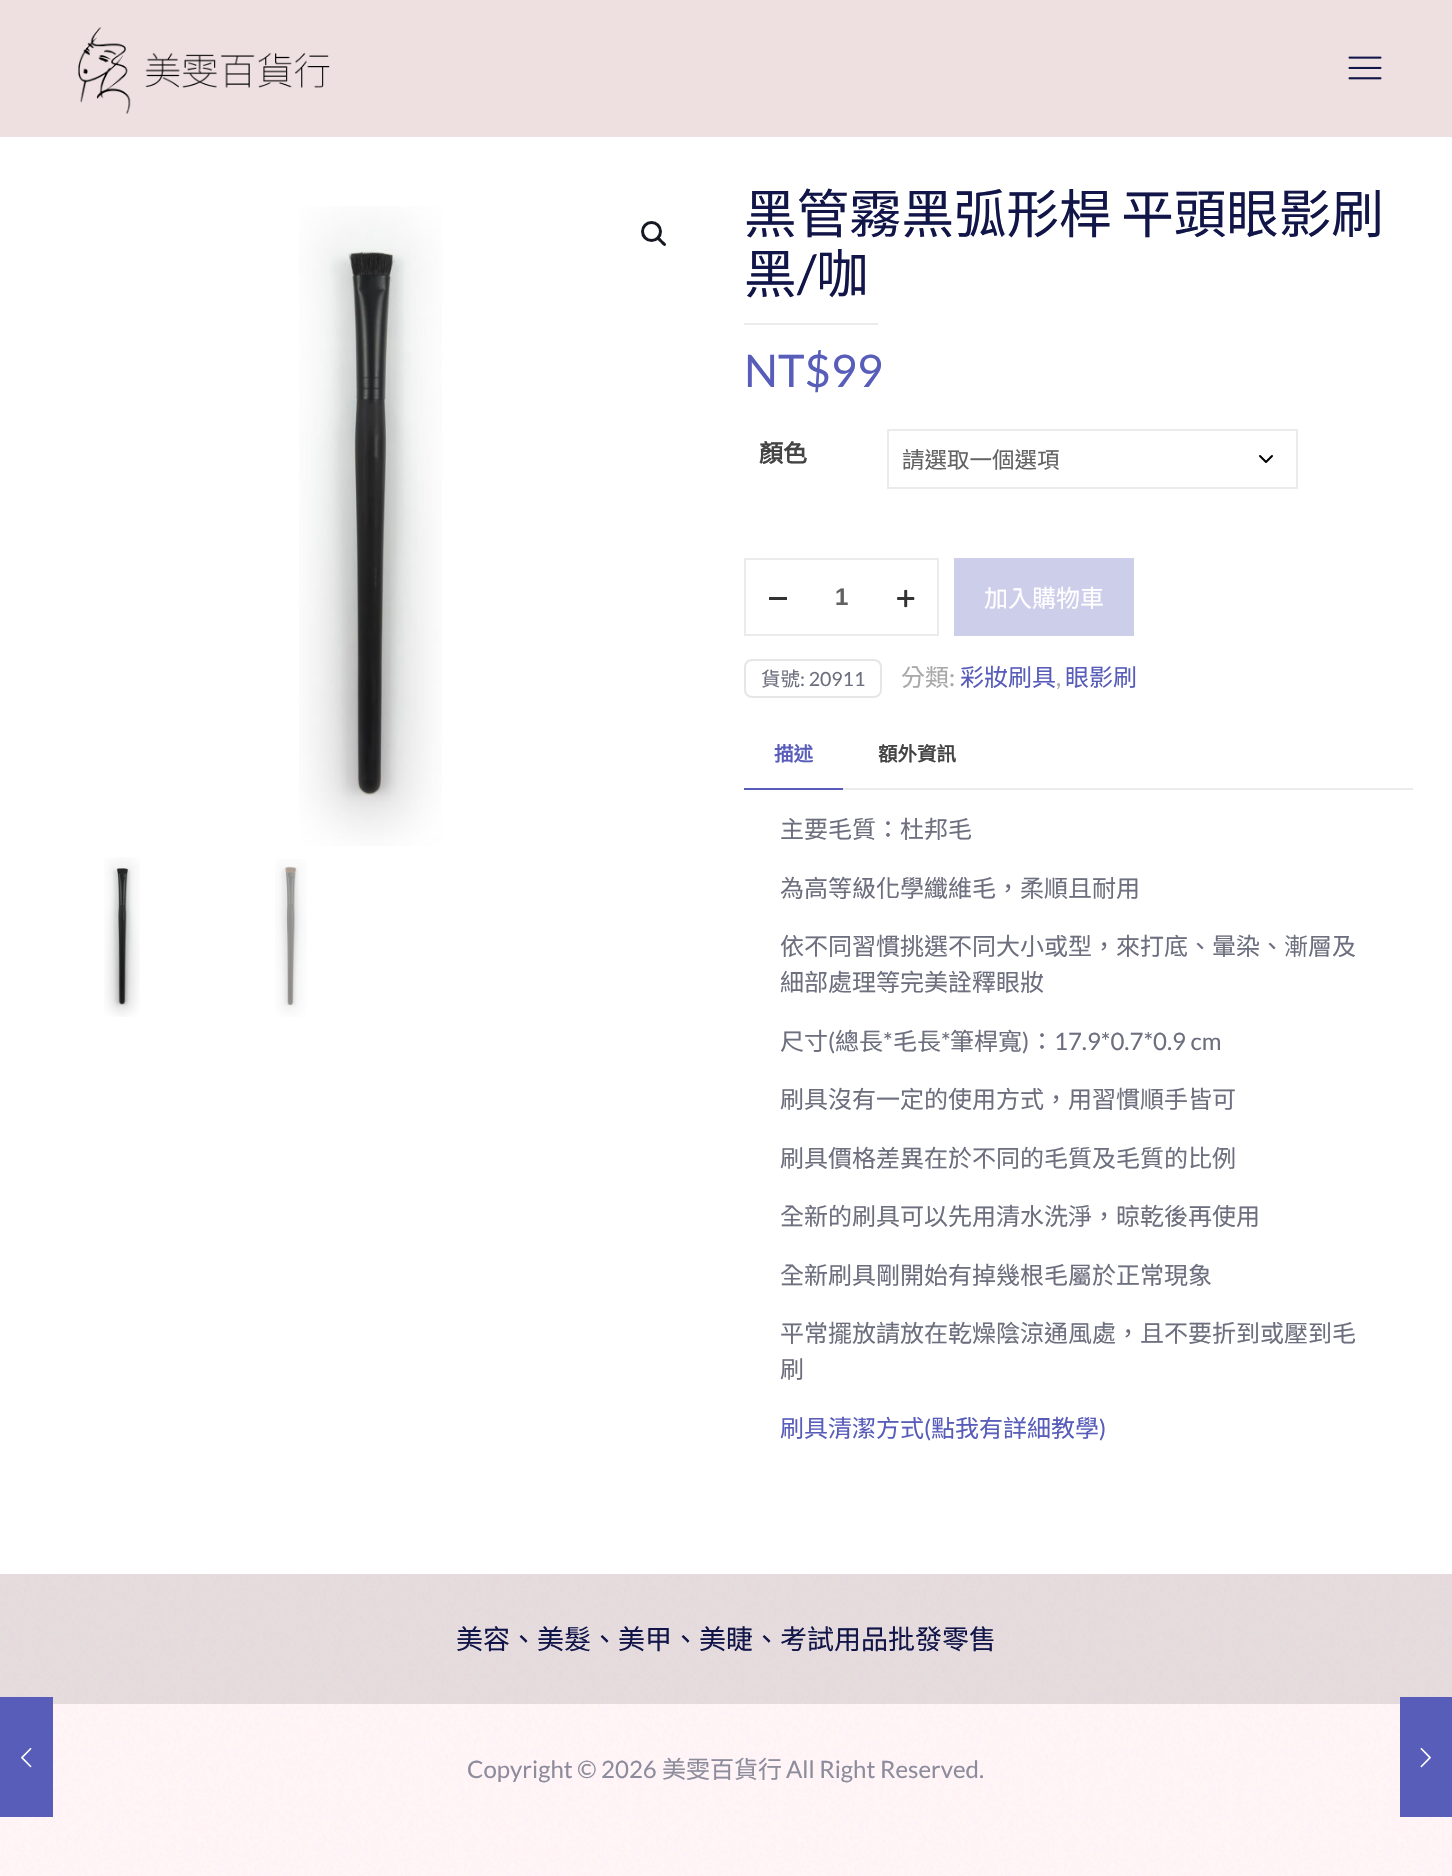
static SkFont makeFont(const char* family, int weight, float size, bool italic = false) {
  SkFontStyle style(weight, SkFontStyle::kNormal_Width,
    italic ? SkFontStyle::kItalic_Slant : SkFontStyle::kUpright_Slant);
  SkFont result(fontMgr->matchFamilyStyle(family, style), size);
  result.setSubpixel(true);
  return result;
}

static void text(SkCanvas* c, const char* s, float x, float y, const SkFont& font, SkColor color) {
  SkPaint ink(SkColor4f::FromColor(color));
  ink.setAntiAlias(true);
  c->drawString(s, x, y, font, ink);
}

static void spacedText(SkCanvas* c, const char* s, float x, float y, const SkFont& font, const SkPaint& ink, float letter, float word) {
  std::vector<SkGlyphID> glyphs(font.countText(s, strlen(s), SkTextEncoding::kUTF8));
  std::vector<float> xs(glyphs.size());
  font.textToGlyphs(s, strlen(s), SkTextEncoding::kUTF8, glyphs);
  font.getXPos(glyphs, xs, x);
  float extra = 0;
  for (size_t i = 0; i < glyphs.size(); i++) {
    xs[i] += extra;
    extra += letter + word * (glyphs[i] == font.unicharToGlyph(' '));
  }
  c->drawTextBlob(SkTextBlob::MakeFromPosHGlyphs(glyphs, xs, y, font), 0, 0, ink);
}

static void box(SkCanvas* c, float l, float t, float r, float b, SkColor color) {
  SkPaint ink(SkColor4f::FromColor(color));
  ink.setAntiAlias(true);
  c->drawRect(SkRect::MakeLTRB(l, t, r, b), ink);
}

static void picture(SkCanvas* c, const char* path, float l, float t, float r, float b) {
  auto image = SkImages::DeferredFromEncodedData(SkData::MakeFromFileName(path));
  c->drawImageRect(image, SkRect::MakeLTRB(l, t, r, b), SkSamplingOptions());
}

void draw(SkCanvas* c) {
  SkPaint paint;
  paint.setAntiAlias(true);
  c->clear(0xffffffff);
  picture(c, "img_08.png", 0, 1574, 1452, 1876);
  box(c, 0, 1574, 1452, 1704, 0x1a000000);
  box(c, 0, 1697, 53, 1817, 0xff585dba);
  picture(c, "img_01.png", 21, 1748, 32, 1768);
  box(c, 0, 0, 1452, 137, 0xffeedfe1);
  picture(c, "img_02.png", 78, 27, 330, 114);
  picture(c, "img_03.png", 1348, 56, 1382, 80);
  picture(c, "img_04.png", 299, 206, 442, 846);
  paint.setStyle(SkPaint::kStroke_Style);
  paint.setStrokeWidth(3);
  paint.setColor(0xff161922);
  c->drawCircle(651.5f, 231.5f, 9, paint);
  paint.setStyle(SkPaint::kFill_Style);
  c->drawPath(SkPathBuilder().moveTo(657.5f, 237.5f).cubicTo(659, 235.5f, 661.5f, 239.5f, 662.5f, 240.5f).cubicTo(663.5f, 241.5f, 667.5f, 244, 665.5f, 245.5f).cubicTo(664, 247.5f, 661.5f, 243.5f, 660.5f, 242.5f).cubicTo(659.5f, 241.5f, 655.5f, 239, 657.5f, 237.5f).close().detach(), paint);
  picture(c, "img_05.png", 104, 857, 140, 1017);
  picture(c, "img_06.png", 275, 859, 307, 1017);
  SkFont face1 = makeFont("Noto Sans CJK TC", 400, 52.5f);
  paint.setColor(0xff111548);
  spacedText(c, "黑管霧黑弧形桿 平頭眼影刷", 744, 233, face1, paint, 0, -2);
  text(c, "黑", 744, 293, face1, 0xff111548);
  SkFont face2 = makeFont("Lato", 400, 52.5f);
  text(c, "/", 797, 293, face2, 0xff111548);
  text(c, "咖", 816, 293, face1, 0xff111548);
  box(c, 744, 323, 878, 325, 0xffebebeb);
  SkFont face3 = makeFont("Lato", 400, 45);
  text(c, "NT$99", 744, 387, face3, 0xff585dba);
  SkFont face4 = makeFont("Noto Sans CJK TC", 700, 24);
  text(c, "顏色", 759, 462, face4, 0xff444444);
  paint.setStyle(SkPaint::kStroke_Style);
  paint.setStrokeWidth(2);
  paint.setStrokeCap(SkPaint::kRound_Cap);
  paint.setStrokeJoin(SkPaint::kRound_Join);
  paint.setColor(0xff000000);
  c->drawPath(SkPathBuilder().moveTo(1260, 456).lineTo(1266, 462).lineTo(1272, 456).detach(), paint);
  paint.setStrokeCap(SkPaint::kButt_Cap);
  paint.setStrokeJoin(SkPaint::kMiter_Join);
  paint.setColor(0xffebebeb);
  c->drawRect(SkRect::MakeLTRB(888, 430, 1297, 488), paint);
  SkFont face5 = makeFont("Noto Sans CJK TC", 400, 22.5f);
  text(c, "請選取一個選項", 902, 468, face5, 0xff626262);
  c->drawRect(SkRect::MakeLTRB(745, 559, 938, 635), paint);
  box(c, 769, 597, 787, 600, 0xff333333);
  SkFont face6 = makeFont("Liberation Sans", 700, 24);
  text(c, "1", 835, 605, face6, 0xff626262);
  picture(c, "img_07.png", 897, 589, 915, 608);
  box(c, 954, 558, 1134, 636, 0xffcdceea);
  SkFont face7 = makeFont("Noto Sans CJK TC", 400, 24);
  text(c, "加入購物車", 984, 607, face7, 0xffffffff);
  paint.setColor(0xffe6e6e6);
  c->drawRoundRect(SkRect::MakeLTRB(745, 660, 881, 697), 7, 7, paint);
  SkFont face8 = makeFont("Noto Sans CJK TC", 400, 19.5f);
  text(c, "貨號", 761, 686, face8, 0xff6d6f7e);
  SkFont face9 = makeFont("Lato", 400, 19.5f);
  text(c, ": 20911", 800, 686, face9, 0xff6d6f7e);
  text(c, "分類", 901, 686, face7, 0xffa8a8a8);
  SkFont face10 = makeFont("Lato", 400, 24);
  text(c, ":", 949, 686, face10, 0xffa8a8a8);
  text(c, "彩妝刷具", 960, 686, face7, 0xff585dba);
  text(c, ",", 1056, 686, face10, 0xffa8a8a8);
  text(c, "眼影刷", 1065, 686, face7, 0xff585dba);
  box(c, 843, 788, 1413, 790, 0xffebebeb);
  SkFont face11 = makeFont("Noto Sans CJK TC", 700, 19.5f);
  text(c, "描述", 774, 761, face11, 0xff585dba);
  box(c, 744, 788, 843, 790, 0xff585dba);
  text(c, "額外資訊", 878, 761, face11, 0xff444444);
  text(c, "主要毛質：杜邦毛", 780, 838, face7, 0xff6d6f7e);
  text(c, "為高等級化學纖維毛，柔順且耐用", 780, 897, face7, 0xff6d6f7e);
  text(c, "依不同習慣挑選不同大小或型，來打底、暈染、漸層及", 780, 955, face7, 0xff6d6f7e);
  text(c, "細部處理等完美詮釋眼妝", 780, 991, face7, 0xff6d6f7e);
  text(c, "尺寸", 780, 1050, face7, 0xff6d6f7e);
  text(c, "(", 828, 1050, face10, 0xff6d6f7e);
  text(c, "總長", 835, 1050, face7, 0xff6d6f7e);
  text(c, "*", 883, 1050, face10, 0xff6d6f7e);
  text(c, "毛長", 893, 1050, face7, 0xff6d6f7e);
  text(c, "*", 941, 1050, face10, 0xff6d6f7e);
  text(c, "筆桿寬", 950, 1050, face7, 0xff6d6f7e);
  text(c, ")", 1022, 1050, face10, 0xff6d6f7e);
  text(c, "：", 1030, 1050, face7, 0xff6d6f7e);
  text(c, "17.9*0.7*0.9 cm", 1054, 1050, face10, 0xff6d6f7e);
  text(c, "刷具沒有一定的使用方式，用習慣順手皆可", 780, 1108, face7, 0xff6d6f7e);
  text(c, "刷具價格差異在於不同的毛質及毛質的比例", 780, 1167, face7, 0xff6d6f7e);
  text(c, "全新的刷具可以先用清水洗淨，晾乾後再使用", 780, 1225, face7, 0xff6d6f7e);
  text(c, "全新刷具剛開始有掉幾根毛屬於正常現象", 780, 1284, face7, 0xff6d6f7e);
  text(c, "平常擺放請放在乾燥陰涼通風處，且不要折到或壓到毛", 780, 1342, face7, 0xff6d6f7e);
  text(c, "刷", 780, 1378, face7, 0xff6d6f7e);
  text(c, "刷具清潔方式", 780, 1437, face7, 0xff585dba);
  text(c, "(", 924, 1437, face10, 0xff585dba);
  text(c, "點我有詳細教學", 931, 1437, face7, 0xff585dba);
  text(c, ")", 1099, 1437, face10, 0xff585dba);
  SkFont face12 = makeFont("Noto Sans CJK TC", 400, 27);
  text(c, "美容、美髮、美甲、美睫、考試用品批發零售", 456, 1649, face12, 0xff111548);
  text(c, "Copyright © 2026", 467, 1778, face10, 0xff8d8c9d);
  text(c, "美雯百貨行", 662, 1778, face7, 0xff8d8c9d);
  text(c, "All Right Reserved.", 786, 1778, face10, 0xff8d8c9d);
  box(c, 1400, 1697, 1452, 1817, 0xff585dba);
  picture(c, "img_09.png", 1420, 1748, 1431, 1768);
}
